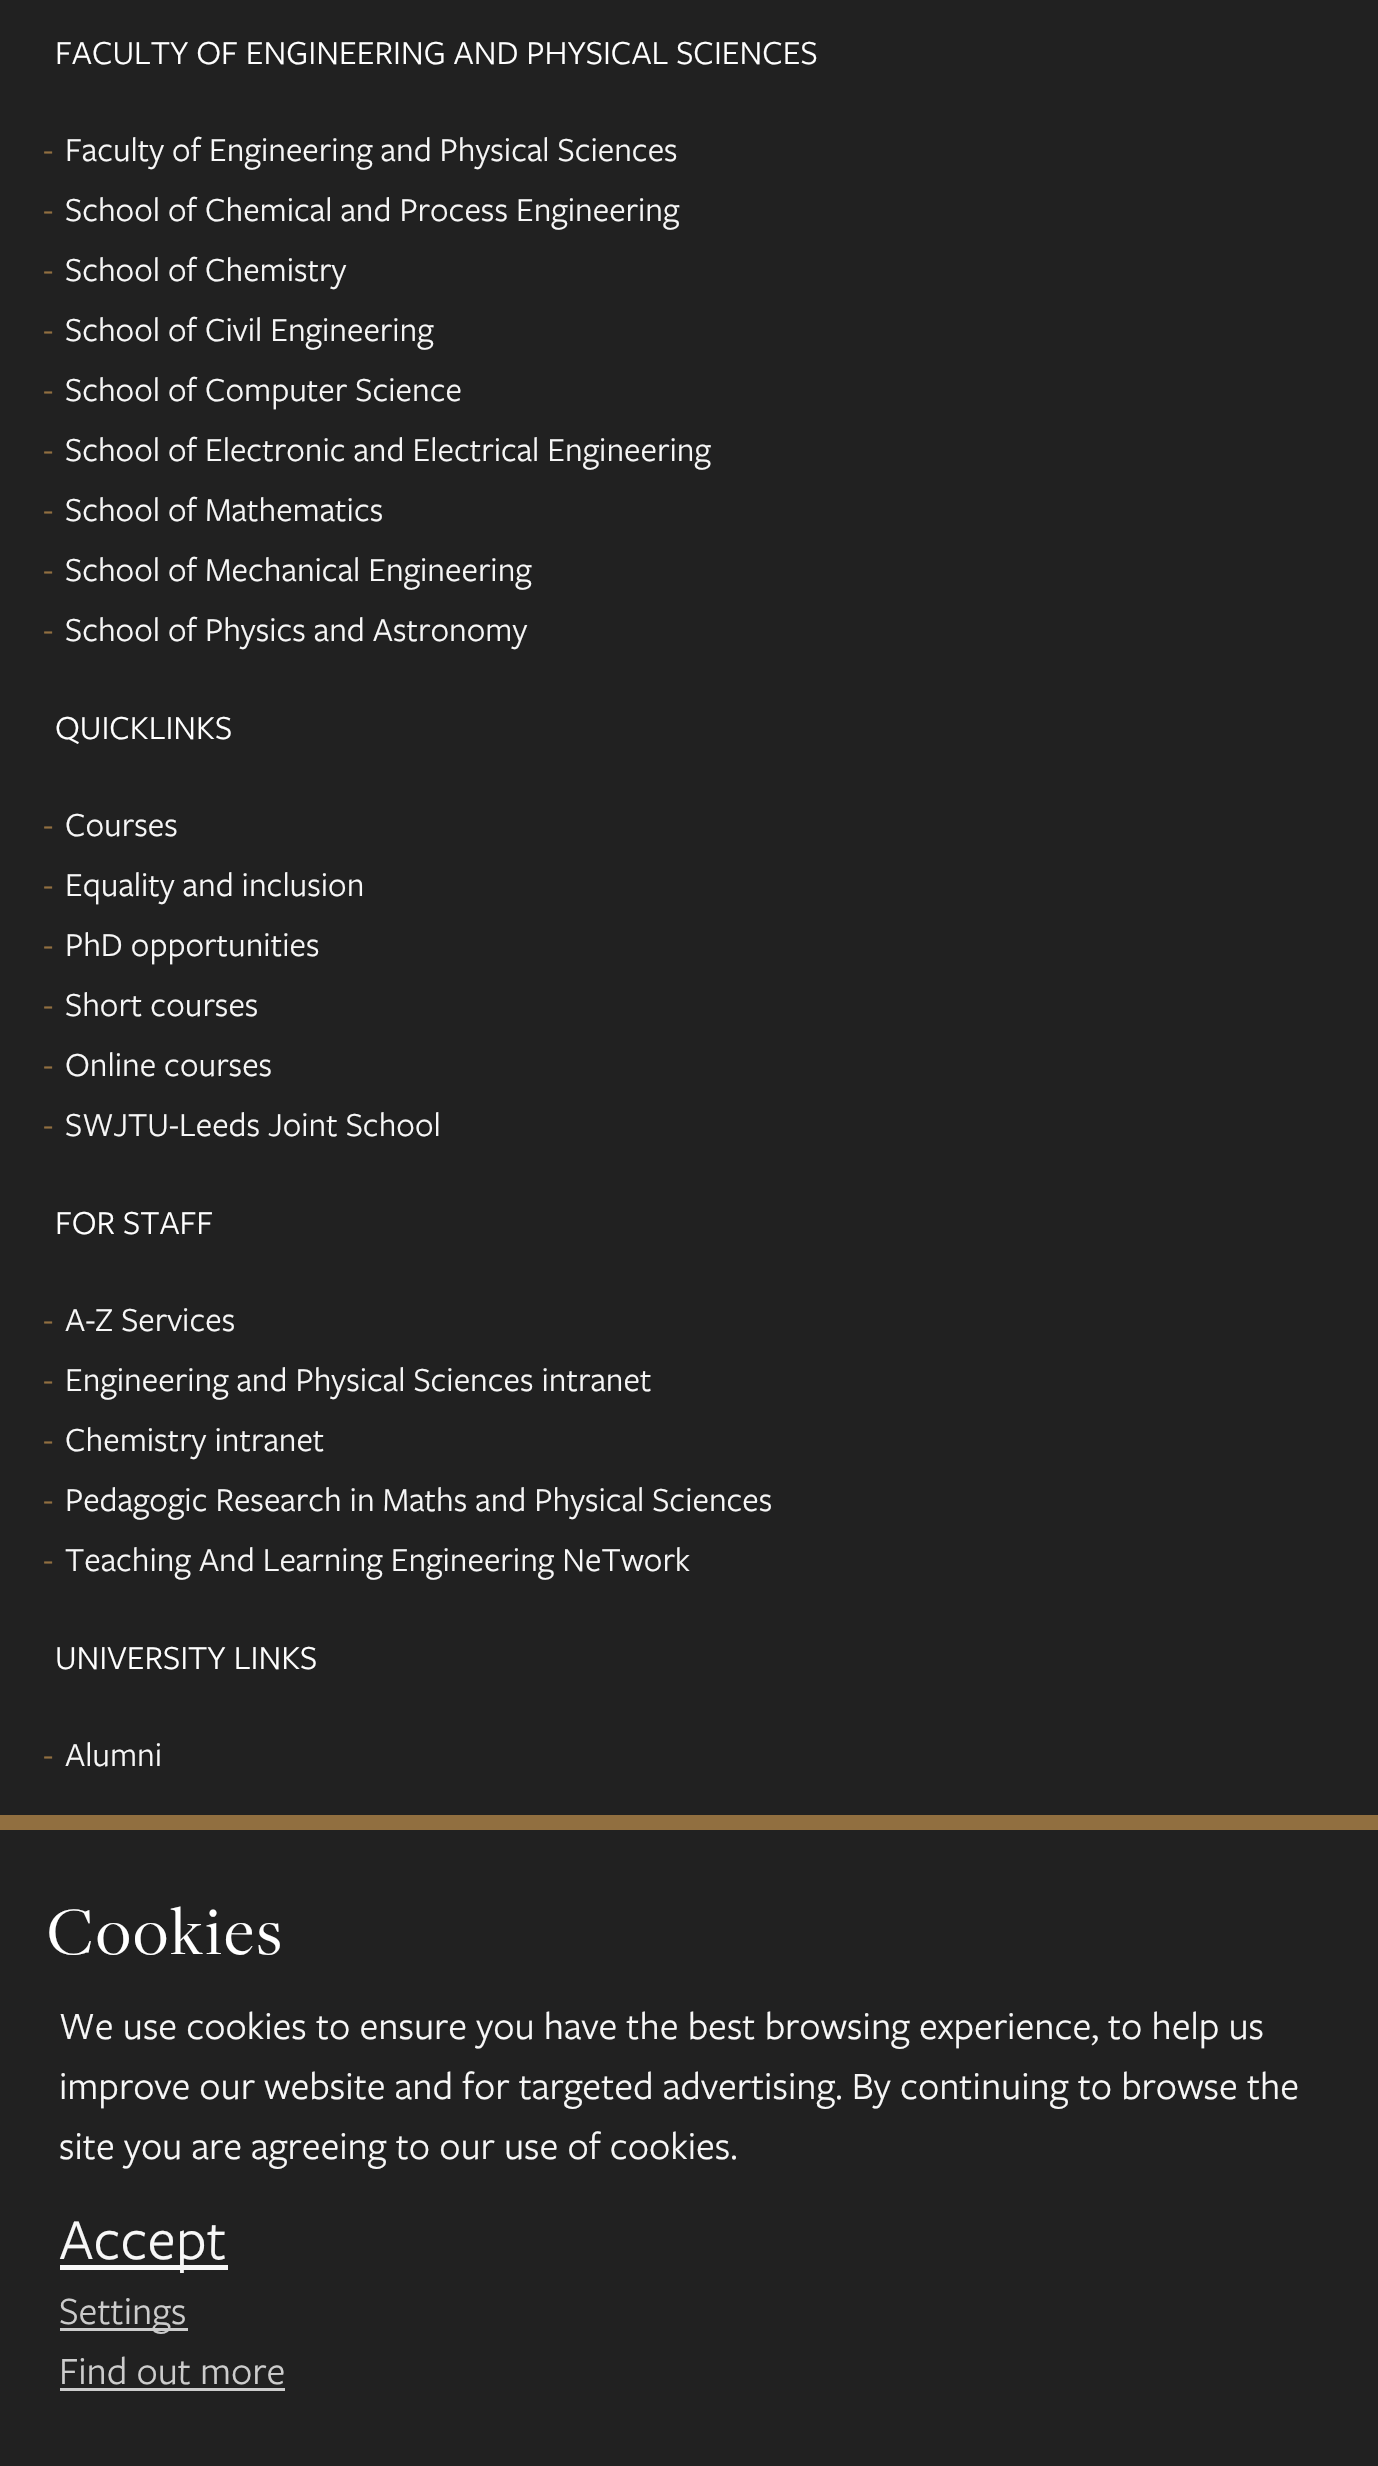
static SkFont makeFont(const char* family, int weight, float size, bool italic = false) {
  SkFontStyle style(weight, SkFontStyle::kNormal_Width,
    italic ? SkFontStyle::kItalic_Slant : SkFontStyle::kUpright_Slant);
  SkFont result(fontMgr->matchFamilyStyle(family, style), size);
  result.setSubpixel(true);
  return result;
}

static void text(SkCanvas* c, const char* s, float x, float y, const SkFont& font, SkColor color) {
  SkPaint ink(SkColor4f::FromColor(color));
  ink.setAntiAlias(true);
  c->drawString(s, x, y, font, ink);
}

static void spacedText(SkCanvas* c, const char* s, float x, float y, const SkFont& font, const SkPaint& ink, float letter, float word) {
  std::vector<SkGlyphID> glyphs(font.countText(s, strlen(s), SkTextEncoding::kUTF8));
  std::vector<float> xs(glyphs.size());
  font.textToGlyphs(s, strlen(s), SkTextEncoding::kUTF8, glyphs);
  font.getXPos(glyphs, xs, x);
  float extra = 0;
  for (size_t i = 0; i < glyphs.size(); i++) {
    xs[i] += extra;
    extra += letter + word * (glyphs[i] == font.unicharToGlyph(' '));
  }
  c->drawTextBlob(SkTextBlob::MakeFromPosHGlyphs(glyphs, xs, y, font), 0, 0, ink);
}

static void box(SkCanvas* c, float l, float t, float r, float b, SkColor color) {
  SkPaint ink(SkColor4f::FromColor(color));
  ink.setAntiAlias(true);
  c->drawRect(SkRect::MakeLTRB(l, t, r, b), ink);
}

void draw(SkCanvas* c) {
  SkPaint paint;
  paint.setAntiAlias(true);
  c->clear(0xff212121);
  SkFont face1 = makeFont("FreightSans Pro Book", 400, 35);
  text(c, "FACULTY OF ENGINEERING AND PHYSICAL SCIENCES", 55, 64, face1, 0xffffffff);
  text(c, "-", 43, 161, face1, 0xff916f40);
  text(c, "Faculty of Engineering and Physical Sciences", 65, 161, face1, 0xfff7f7f7);
  text(c, "-", 43, 221, face1, 0xff916f40);
  text(c, "School of Chemical and Process Engineering", 65, 221, face1, 0xfff7f7f7);
  text(c, "-", 43, 281, face1, 0xff916f40);
  text(c, "School of Chemistry", 65, 281, face1, 0xfff7f7f7);
  text(c, "-", 43, 341, face1, 0xff916f40);
  text(c, "School of Civil Engineering", 65, 341, face1, 0xfff7f7f7);
  text(c, "-", 43, 401, face1, 0xff916f40);
  text(c, "School of Computer Science", 65, 401, face1, 0xfff7f7f7);
  text(c, "-", 43, 461, face1, 0xff916f40);
  text(c, "School of Electronic and Electrical Engineering", 65, 461, face1, 0xfff7f7f7);
  text(c, "-", 43, 521, face1, 0xff916f40);
  text(c, "School of Mathematics", 65, 521, face1, 0xfff7f7f7);
  text(c, "-", 43, 581, face1, 0xff916f40);
  text(c, "School of Mechanical Engineering", 65, 581, face1, 0xfff7f7f7);
  text(c, "-", 43, 641, face1, 0xff916f40);
  text(c, "School of Physics and Astronomy", 65, 641, face1, 0xfff7f7f7);
  text(c, "QUICKLINKS", 55, 739, face1, 0xffffffff);
  text(c, "-", 43, 836, face1, 0xff916f40);
  text(c, "Courses", 65, 836, face1, 0xfff7f7f7);
  text(c, "-", 43, 896, face1, 0xff916f40);
  text(c, "Equality and inclusion", 65, 896, face1, 0xfff7f7f7);
  text(c, "-", 43, 956, face1, 0xff916f40);
  text(c, "PhD opportunities", 65, 956, face1, 0xfff7f7f7);
  text(c, "-", 43, 1016, face1, 0xff916f40);
  text(c, "Short courses", 65, 1016, face1, 0xfff7f7f7);
  text(c, "-", 43, 1076, face1, 0xff916f40);
  text(c, "Online courses", 65, 1076, face1, 0xfff7f7f7);
  text(c, "-", 43, 1136, face1, 0xff916f40);
  text(c, "SWJTU-Leeds Joint School", 65, 1136, face1, 0xfff7f7f7);
  text(c, "FOR STAFF", 55, 1234, face1, 0xffffffff);
  text(c, "-", 43, 1331, face1, 0xff916f40);
  text(c, "A-Z Services", 65, 1331, face1, 0xfff7f7f7);
  text(c, "-", 43, 1391, face1, 0xff916f40);
  text(c, "Engineering and Physical Sciences intranet", 65, 1391, face1, 0xfff7f7f7);
  text(c, "-", 43, 1451, face1, 0xff916f40);
  text(c, "Chemistry intranet", 65, 1451, face1, 0xfff7f7f7);
  text(c, "-", 43, 1511, face1, 0xff916f40);
  text(c, "Pedagogic Research in Maths and Physical Sciences", 65, 1511, face1, 0xfff7f7f7);
  text(c, "-", 43, 1571, face1, 0xff916f40);
  text(c, "Teaching And Learning Engineering NeTwork", 65, 1571, face1, 0xfff7f7f7);
  text(c, "UNIVERSITY LINKS", 55, 1669, face1, 0xffffffff);
  text(c, "-", 43, 1766, face1, 0xff916f40);
  text(c, "Alumni", 65, 1766, face1, 0xfff7f7f7);
  box(c, 0, 1815, 1378, 1830, 0xff916f40);
  SkFont face2 = makeFont("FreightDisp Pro", 400, 70);
  paint.setColor(0xffffffff);
  spacedText(c, "Cookies", 47, 1954, face2, paint, 2.5f, 0);
  SkFont face3 = makeFont("FreightSans Pro Book", 400, 40);
  text(c, "We use cookies to ensure you have the best browsing experience, to help us", 59, 2039, face3, 0xfff7f7f7);
  text(c, "improve our website and for targeted advertising. By continuing to browse the", 59, 2099, face3, 0xfff7f7f7);
  text(c, "site you are agreeing to our use of cookies.", 59, 2159, face3, 0xfff7f7f7);
  box(c, 60, 2265, 228, 2270, 0xfff7f7f7);
  SkFont face4 = makeFont("FreightSans Pro Book", 400, 60);
  text(c, "Accept", 59, 2259, face4, 0xfff7f7f7);
  box(c, 60, 2328, 188, 2331, 0xffcccccc);
  text(c, "Settings", 59, 2324, face3, 0xffcccccc);
  text(c, "Find out more", 59, 2384, face3, 0xffcccccc);
  box(c, 60, 2388, 285, 2391, 0xffcccccc);
}
